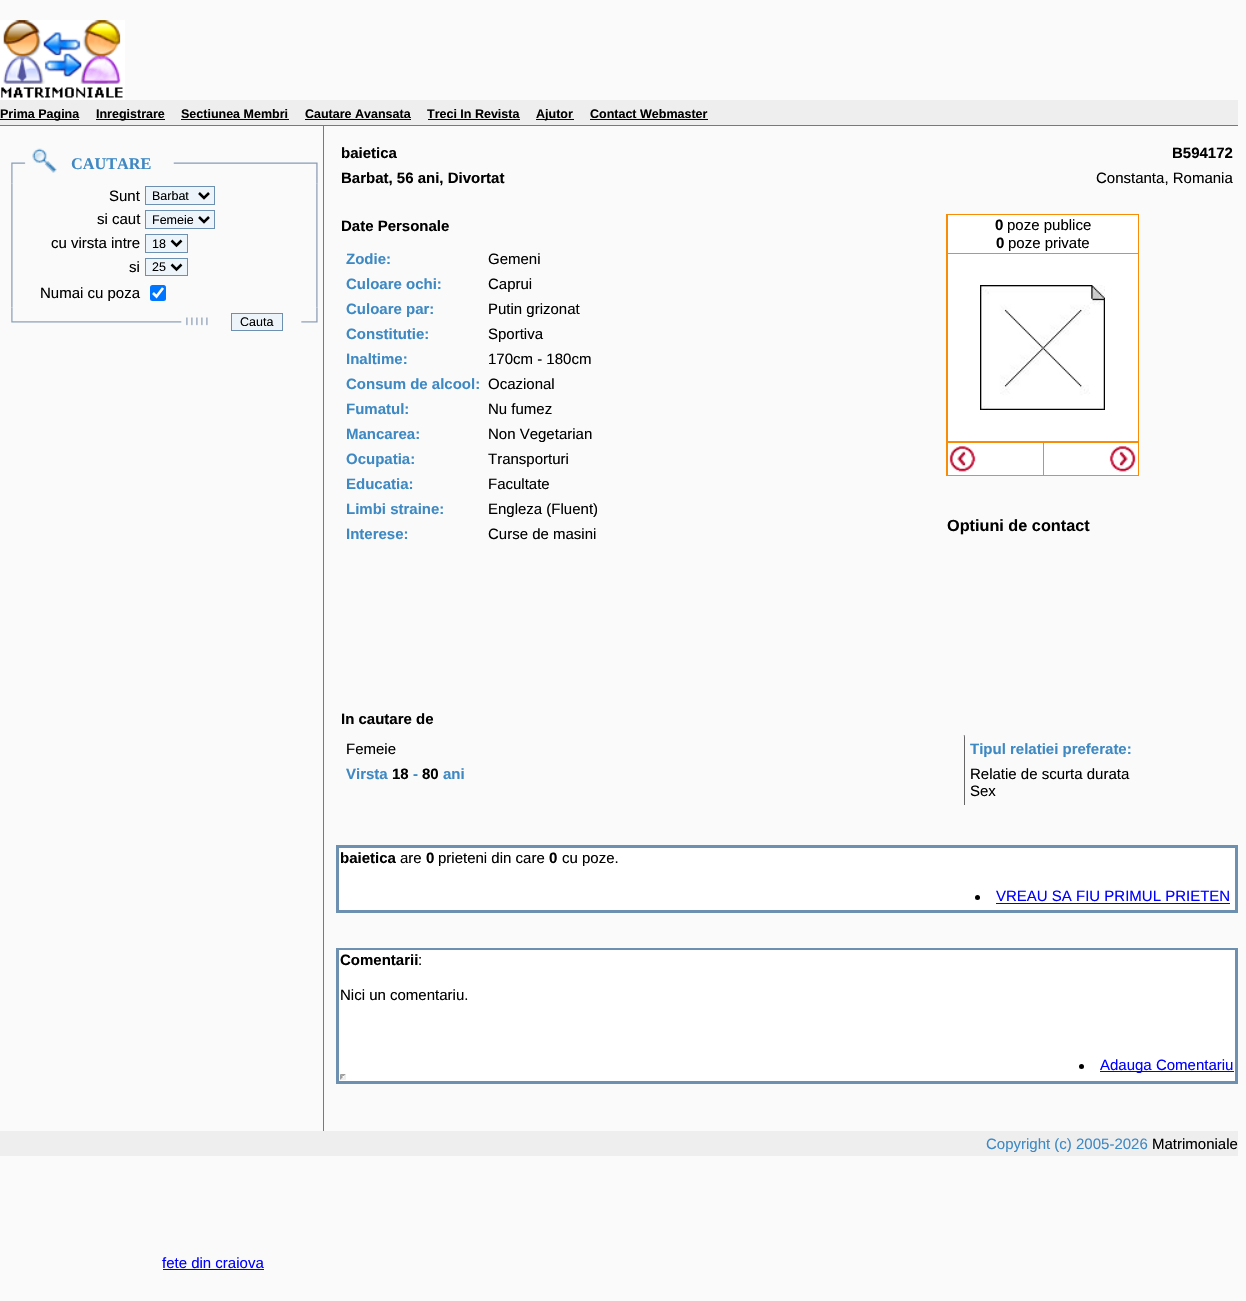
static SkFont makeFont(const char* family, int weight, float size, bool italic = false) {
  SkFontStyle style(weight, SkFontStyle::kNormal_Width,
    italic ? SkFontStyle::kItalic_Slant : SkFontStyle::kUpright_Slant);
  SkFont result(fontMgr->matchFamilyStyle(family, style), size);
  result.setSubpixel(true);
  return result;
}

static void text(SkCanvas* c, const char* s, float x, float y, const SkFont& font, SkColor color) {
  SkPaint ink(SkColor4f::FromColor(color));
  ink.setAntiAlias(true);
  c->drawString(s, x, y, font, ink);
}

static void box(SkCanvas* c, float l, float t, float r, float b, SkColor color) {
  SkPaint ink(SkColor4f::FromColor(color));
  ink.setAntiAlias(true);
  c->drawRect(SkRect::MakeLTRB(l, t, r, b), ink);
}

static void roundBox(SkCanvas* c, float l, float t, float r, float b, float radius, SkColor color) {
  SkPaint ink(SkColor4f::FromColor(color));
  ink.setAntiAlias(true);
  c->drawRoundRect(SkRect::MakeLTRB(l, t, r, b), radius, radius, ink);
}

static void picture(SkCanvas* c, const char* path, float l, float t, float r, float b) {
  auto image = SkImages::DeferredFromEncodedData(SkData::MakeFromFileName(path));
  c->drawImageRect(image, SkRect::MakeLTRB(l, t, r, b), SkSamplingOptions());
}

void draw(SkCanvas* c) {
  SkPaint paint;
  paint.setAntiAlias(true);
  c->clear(0xfffafafa);
  picture(c, "img_01.png", 0, 20, 125, 100);
  box(c, 0, 100, 1238, 125, 0xffeeeeee);
  box(c, 0, 119, 79, 120, 0xff000000);
  SkFont face1 = makeFont("Liberation Sans", 700, 12.5f);
  text(c, "Prima Pagina", 0, 118, face1, 0xff000000);
  box(c, 96, 119, 165, 120, 0xff000000);
  text(c, "Inregistrare", 96, 118, face1, 0xff000000);
  text(c, "Sectiunea Membri", 181, 118, face1, 0xff000000);
  box(c, 181, 119, 289, 120, 0xff000000);
  text(c, "Cautare Avansata", 305, 118, face1, 0xff000000);
  box(c, 305, 119, 411, 120, 0xff000000);
  text(c, "Treci In Revista", 427, 118, face1, 0xff000000);
  box(c, 428, 119, 520, 120, 0xff000000);
  box(c, 536, 119, 574, 120, 0xff000000);
  text(c, "Ajutor", 536, 118, face1, 0xff000000);
  text(c, "Contact Webmaster", 590, 118, face1, 0xff000000);
  box(c, 590, 119, 708, 120, 0xff000000);
  box(c, 0, 125, 1238, 126, 0xff3f89c3);
  picture(c, "img_02.png", 11, 148, 318, 184);
  SkFont face2 = makeFont("Liberation Serif", 700, 16.25f);
  text(c, "CAUTARE", 71, 169, face2, 0xff3f89c3);
  picture(c, "img_03.png", 11, 183, 318, 308);
  SkFont face3 = makeFont("Liberation Sans", 400, 15);
  text(c, "Sunt", 109, 201, face3, 0xff000000);
  paint.setColor(0xffedf5fb);
  c->drawRect(SkRect::MakeLTRB(145.5f, 186.5f, 214.5f, 204.5f), paint);
  paint.setStyle(SkPaint::kStroke_Style);
  paint.setStrokeWidth(1);
  paint.setColor(0xff6d90b0);
  c->drawRect(SkRect::MakeLTRB(145.5f, 186.5f, 214.5f, 204.5f), paint);
  paint.setStrokeWidth(2.5f);
  paint.setColor(0xff000000);
  c->drawPath(SkPathBuilder().moveTo(199, 193).lineTo(204, 198).lineTo(209, 193).detach(), paint);
  SkFont face4 = makeFont("Liberation Sans", 400, 12.5f);
  text(c, "Barbat", 152, 200, face4, 0xff000000);
  text(c, "si caut", 97, 224, face3, 0xff000000);
  paint.setStyle(SkPaint::kFill_Style);
  paint.setColor(0xffedf5fb);
  c->drawRect(SkRect::MakeLTRB(145.5f, 210.5f, 214.5f, 228.5f), paint);
  paint.setStyle(SkPaint::kStroke_Style);
  paint.setStrokeWidth(1);
  paint.setColor(0xff6d90b0);
  c->drawRect(SkRect::MakeLTRB(145.5f, 210.5f, 214.5f, 228.5f), paint);
  paint.setStrokeWidth(2.5f);
  paint.setColor(0xff000000);
  c->drawPath(SkPathBuilder().moveTo(199, 217).lineTo(204, 222).lineTo(209, 217).detach(), paint);
  text(c, "Femeie", 152, 224, face4, 0xff000000);
  text(c, "cu virsta intre", 51, 248, face3, 0xff000000);
  paint.setStyle(SkPaint::kFill_Style);
  paint.setColor(0xffedf5fb);
  c->drawRect(SkRect::MakeLTRB(145.5f, 234.5f, 187.5f, 252.5f), paint);
  paint.setStyle(SkPaint::kStroke_Style);
  paint.setStrokeWidth(1);
  paint.setColor(0xff6d90b0);
  c->drawRect(SkRect::MakeLTRB(145.5f, 234.5f, 187.5f, 252.5f), paint);
  paint.setStrokeWidth(2.5f);
  paint.setColor(0xff000000);
  c->drawPath(SkPathBuilder().moveTo(171.5f, 240.5f).lineTo(176.5f, 245.5f).lineTo(181.5f, 240.5f).detach(), paint);
  text(c, "18", 152, 248, face4, 0xff000000);
  text(c, "si", 129, 272, face3, 0xff000000);
  paint.setStyle(SkPaint::kFill_Style);
  paint.setColor(0xffedf5fb);
  c->drawRect(SkRect::MakeLTRB(145.5f, 258.5f, 187.5f, 275.5f), paint);
  paint.setStyle(SkPaint::kStroke_Style);
  paint.setStrokeWidth(1);
  paint.setColor(0xff6d90b0);
  c->drawRect(SkRect::MakeLTRB(145.5f, 258.5f, 187.5f, 275.5f), paint);
  paint.setStrokeWidth(2.5f);
  paint.setColor(0xff000000);
  c->drawPath(SkPathBuilder().moveTo(171.5f, 264.5f).lineTo(176.5f, 269.5f).lineTo(181.5f, 264.5f).detach(), paint);
  text(c, "25", 152, 271, face4, 0xff000000);
  text(c, "Numai cu poza", 40, 298, face3, 0xff000000);
  roundBox(c, 150, 285, 166, 301, 2.5f, 0xff0075ff);
  paint.setStrokeWidth(2.6f);
  paint.setColor(0xffffffff);
  c->drawPath(SkPathBuilder().moveTo(153, 293).lineTo(156.5f, 296.5f).lineTo(163, 288).detach(), paint);
  picture(c, "img_04.png", 11, 307, 318, 326);
  paint.setStyle(SkPaint::kFill_Style);
  paint.setColor(0xffedf5fb);
  c->drawRect(SkRect::MakeLTRB(231.5f, 313.5f, 282.5f, 330.5f), paint);
  paint.setStyle(SkPaint::kStroke_Style);
  paint.setStrokeWidth(1);
  paint.setColor(0xff6d90b0);
  c->drawRect(SkRect::MakeLTRB(231.5f, 313.5f, 282.5f, 330.5f), paint);
  text(c, "Cauta", 240, 326, face4, 0xff000000);
  box(c, 323, 126, 324, 1131, 0xff3f89c3);
  SkFont face5 = makeFont("Liberation Sans", 700, 15);
  text(c, "baietica", 341, 158, face5, 0xff000000);
  text(c, "B594172", 1172, 158, face5, 0xff000000);
  text(c, "Barbat, 56 ani, Divortat", 341, 183, face5, 0xff000000);
  text(c, "Constanta, Romania", 1096, 183, face3, 0xff000000);
  text(c, "Date Personale", 341, 231, face5, 0xff000000);
  box(c, 946, 214, 1139, 476, 0xfff88c06);
  box(c, 948, 215, 1138, 253, 0xffffffff);
  text(c, "0", 995, 230, face5, 0xff000000);
  text(c, "poze publice", 1007, 230, face3, 0xff000000);
  text(c, "0", 996, 248, face5, 0xff000000);
  text(c, "poze private", 1008, 248, face3, 0xff000000);
  box(c, 948, 254, 1138, 441, 0xffffffff);
  picture(c, "img_05.png", 980, 285, 1105, 410);
  box(c, 948, 443, 1043, 475, 0xffffffff);
  picture(c, "img_06.png", 949, 446, 976, 472);
  box(c, 1044, 443, 1138, 475, 0xffffffff);
  picture(c, "img_07.png", 1109, 446, 1136, 472);
  SkFont face6 = makeFont("Liberation Sans", 700, 16.25f);
  text(c, "Optiuni de contact", 947, 531, face6, 0xff000000);
  text(c, "Zodie:", 346, 264, face5, 0xff3f89c3);
  text(c, "Gemeni", 488, 264, face3, 0xff000000);
  text(c, "Culoare ochi:", 346, 289, face5, 0xff3f89c3);
  text(c, "Caprui", 488, 289, face3, 0xff000000);
  text(c, "Culoare par:", 346, 314, face5, 0xff3f89c3);
  text(c, "Putin grizonat", 488, 314, face3, 0xff000000);
  text(c, "Constitutie:", 346, 339, face5, 0xff3f89c3);
  text(c, "Sportiva", 488, 339, face3, 0xff000000);
  text(c, "Inaltime:", 346, 364, face5, 0xff3f89c3);
  text(c, "170cm - 180cm", 488, 364, face3, 0xff000000);
  text(c, "Consum de alcool:", 346, 389, face5, 0xff3f89c3);
  text(c, "Ocazional", 488, 389, face3, 0xff000000);
  text(c, "Fumatul:", 346, 414, face5, 0xff3f89c3);
  text(c, "Nu fumez", 488, 414, face3, 0xff000000);
  text(c, "Mancarea:", 346, 439, face5, 0xff3f89c3);
  text(c, "Non Vegetarian", 488, 439, face3, 0xff000000);
  text(c, "Ocupatia:", 346, 464, face5, 0xff3f89c3);
  text(c, "Transporturi", 488, 464, face3, 0xff000000);
  text(c, "Educatia:", 346, 489, face5, 0xff3f89c3);
  text(c, "Facultate", 488, 489, face3, 0xff000000);
  text(c, "Limbi straine:", 346, 514, face5, 0xff3f89c3);
  text(c, "Engleza (Fluent)", 488, 514, face3, 0xff000000);
  text(c, "Interese:", 346, 539, face5, 0xff3f89c3);
  text(c, "Curse de masini", 488, 539, face3, 0xff000000);
  text(c, "In cautare de", 341, 724, face5, 0xff000000);
  text(c, "Femeie", 346, 754, face3, 0xff000000);
  text(c, "Virsta", 346, 779, face5, 0xff3f89c3);
  text(c, "18", 392, 779, face5, 0xff000000);
  text(c, "-", 413, 779, face5, 0xff3f89c3);
  text(c, "80", 422, 779, face5, 0xff000000);
  text(c, "ani", 443, 779, face5, 0xff3f89c3);
  box(c, 964, 735, 965, 805, 0xff666666);
  picture(c, "img_08.png", 963, 735, 965, 737);
  text(c, "Tipul relatiei preferate:", 970, 754, face5, 0xff3f89c3);
  text(c, "Relatie de scurta durata", 970, 779, face3, 0xff000000);
  text(c, "Sex", 970, 796, face3, 0xff000000);
  box(c, 336, 845, 1238, 913, 0xff6d90b0);
  box(c, 339, 848, 1235, 910, 0xffffffff);
  text(c, "baietica", 340, 863, face5, 0xff000000);
  text(c, "are", 400, 863, face3, 0xff000000);
  text(c, "0", 426, 863, face5, 0xff000000);
  text(c, "prieteni din care", 438, 863, face3, 0xff000000);
  text(c, "0", 549, 863, face5, 0xff000000);
  text(c, "cu poze.", 562, 863, face3, 0xff000000);
  paint.setStyle(SkPaint::kFill_Style);
  paint.setColor(0xff000000);
  c->drawCircle(977.5f, 897.5f, 2.5f, paint);
  text(c, "VREAU SA FIU PRIMUL PRIETEN", 996, 901, face3, 0xff0000ff);
  box(c, 996, 903, 1230, 904, 0xff0000ff);
  box(c, 336, 948, 1238, 1084, 0xff6d90b0);
  box(c, 339, 950, 1235, 1081, 0xffffffff);
  text(c, "Comentarii", 340, 965, face5, 0xff000000);
  text(c, ":", 418, 965, face3, 0xff000000);
  text(c, "Nici un comentariu.", 340, 1000, face3, 0xff000000);
  c->drawCircle(1081.5f, 1066.5f, 2.5f, paint);
  box(c, 1100, 1071, 1234, 1072, 0xff0000ff);
  text(c, "Adauga Comentariu", 1100, 1070, face3, 0xff0000ff);
  paint.setColor(0xff9f9f9f);
  c->drawPath(SkPathBuilder().moveTo(340, 1074).lineTo(346, 1074).lineTo(344, 1076).lineTo(342.5f, 1076).close().detach(), paint);
  paint.setColor(0xffeeeeee);
  c->drawPath(SkPathBuilder().moveTo(346, 1074).lineTo(346, 1080).lineTo(344, 1077.5f).lineTo(344, 1076).close().detach(), paint);
  c->drawPath(SkPathBuilder().moveTo(346, 1080).lineTo(340, 1080).lineTo(342.5f, 1077.5f).lineTo(344, 1077.5f).close().detach(), paint);
  paint.setColor(0xff9f9f9f);
  c->drawPath(SkPathBuilder().moveTo(340, 1080).lineTo(340, 1074).lineTo(342.5f, 1076).lineTo(342.5f, 1077.5f).close().detach(), paint);
  box(c, 0, 1131, 1238, 1156, 0xffeeeeee);
  text(c, "Copyright (c) 2005-2026", 986, 1149, face3, 0xff3f89c3);
  text(c, "Matrimoniale", 1152, 1149, face3, 0xff000000);
  text(c, "fete din craiova", 162, 1268, face3, 0xff0000ff);
  box(c, 163, 1269, 264, 1270, 0xff0000ff);
}
